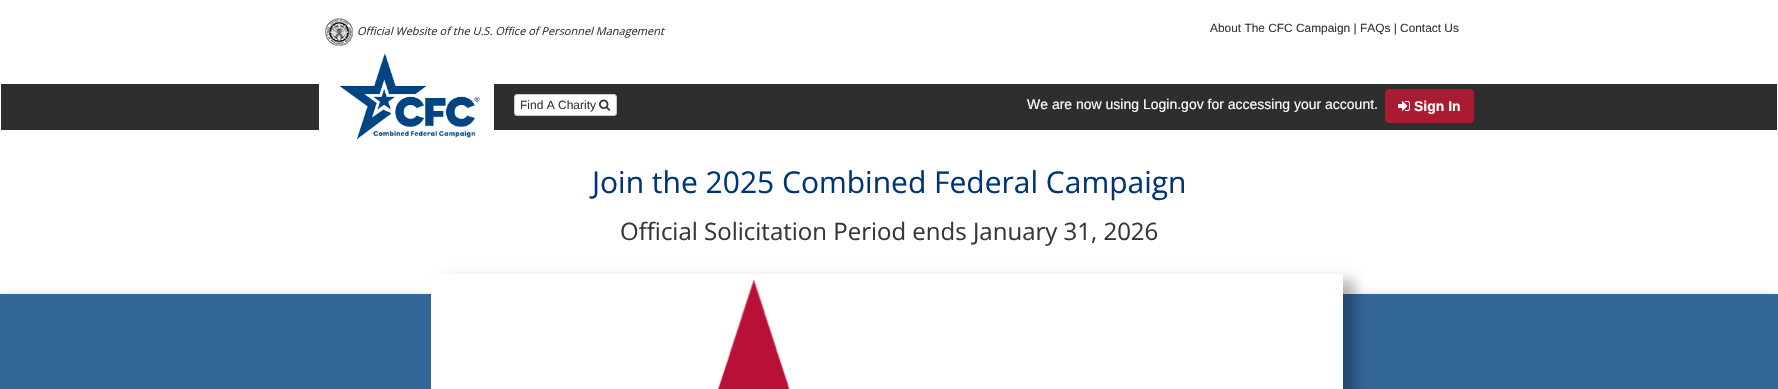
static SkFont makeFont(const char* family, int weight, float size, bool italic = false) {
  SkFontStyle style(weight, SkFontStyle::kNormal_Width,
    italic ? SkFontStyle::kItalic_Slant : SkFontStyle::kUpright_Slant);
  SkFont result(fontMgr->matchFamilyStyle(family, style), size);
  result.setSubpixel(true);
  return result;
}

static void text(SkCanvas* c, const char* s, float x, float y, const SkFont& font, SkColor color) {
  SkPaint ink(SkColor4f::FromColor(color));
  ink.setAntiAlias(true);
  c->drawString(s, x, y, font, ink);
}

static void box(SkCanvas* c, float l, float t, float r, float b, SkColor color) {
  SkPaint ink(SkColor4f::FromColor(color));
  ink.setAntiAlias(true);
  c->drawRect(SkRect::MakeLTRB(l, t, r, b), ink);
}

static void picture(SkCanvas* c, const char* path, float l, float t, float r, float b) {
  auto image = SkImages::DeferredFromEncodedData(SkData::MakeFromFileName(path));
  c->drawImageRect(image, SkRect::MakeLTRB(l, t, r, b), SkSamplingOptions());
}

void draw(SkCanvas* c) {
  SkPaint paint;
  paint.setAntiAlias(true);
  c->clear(0xffffffff);
  picture(c, "img_01.png", 325, 18, 354, 46);
  SkFont face1 = makeFont("Open Sans", 400, 11, true);
  text(c, "Official Website of the U.S. Office of Personnel Management", 357, 35, face1, 0xff363636);
  SkFont face2 = makeFont("Liberation Sans", 400, 11.9f);
  text(c, "About The CFC Campaign | FAQs | Contact Us", 1210, 32, face2, 0xff363636);
  box(c, 1, 84, 1777, 130, 0xff2e2e2e);
  picture(c, "img_02.png", 319, 53, 494, 140);
  paint.setColor(0xffffffff);
  c->drawRoundRect(SkRect::MakeLTRB(514.5f, 94.5f, 616.5f, 115.5f), 2.5f, 2.5f, paint);
  paint.setStyle(SkPaint::kStroke_Style);
  paint.setStrokeWidth(1);
  paint.setColor(0xffcccccc);
  c->drawRoundRect(SkRect::MakeLTRB(514.5f, 94.5f, 616.5f, 115.5f), 2.5f, 2.5f, paint);
  SkFont face3 = makeFont("Liberation Sans", 400, 12);
  text(c, "Find A Charity", 520, 109, face3, 0xff363636);
  picture(c, "img_03.png", 599, 99, 611, 111);
  SkFont face4 = makeFont("Liberation Sans", 400, 14);
  text(c, "We are now using Login.gov for accessing your account.", 1027, 109, face4, 0xffffffff);
  paint.setStyle(SkPaint::kFill_Style);
  paint.setColor(0xffac1a2f);
  c->drawRoundRect(SkRect::MakeLTRB(1385.5f, 89.5f, 1473.5f, 122.5f), 3.5f, 3.5f, paint);
  paint.setStyle(SkPaint::kStroke_Style);
  c->drawRoundRect(SkRect::MakeLTRB(1385.5f, 89.5f, 1473.5f, 122.5f), 3.5f, 3.5f, paint);
  picture(c, "img_04.png", 1398, 101, 1410, 111);
  SkFont face5 = makeFont("Liberation Sans", 700, 14);
  text(c, "Sign In", 1414, 111, face5, 0xffffffff);
  SkFont face6 = makeFont("Open Sans", 400, 30);
  text(c, "Join the 2025 Combined Federal Campaign", 592, 193, face6, 0xff003479);
  SkFont face7 = makeFont("Open Sans", 400, 24);
  text(c, "Official Solicitation Period ends January 31, 2026", 620, 240, face7, 0xff363636);
  paint.setStyle(SkPaint::kFill_Style);
  paint.setColor(0x47000000);
  paint.setMaskFilter(SkMaskFilter::MakeBlur(kNormal_SkBlurStyle, 6));
  c->drawRect(SkRect::MakeLTRB(0, 300, 1778, 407), paint);
  paint.setMaskFilter(nullptr);
  box(c, 0, 294, 1778, 389, 0xff336699);
  c->save();
  c->clipPath(SkPathBuilder(SkPathFillType::kEvenOdd).moveTo(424, 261).lineTo(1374, 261).lineTo(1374, 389).lineTo(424, 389).close().moveTo(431, 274).lineTo(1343, 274).lineTo(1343, 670).lineTo(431, 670).close().detach(), true);
  paint.setMaskFilter(SkMaskFilter::MakeBlur(kNormal_SkBlurStyle, 6));
  c->drawRect(SkRect::MakeLTRB(443, 280, 1355, 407), paint);
  paint.setMaskFilter(nullptr);
  c->restore();
  picture(c, "img_05.png", 431, 279, 1343, 389);
}
